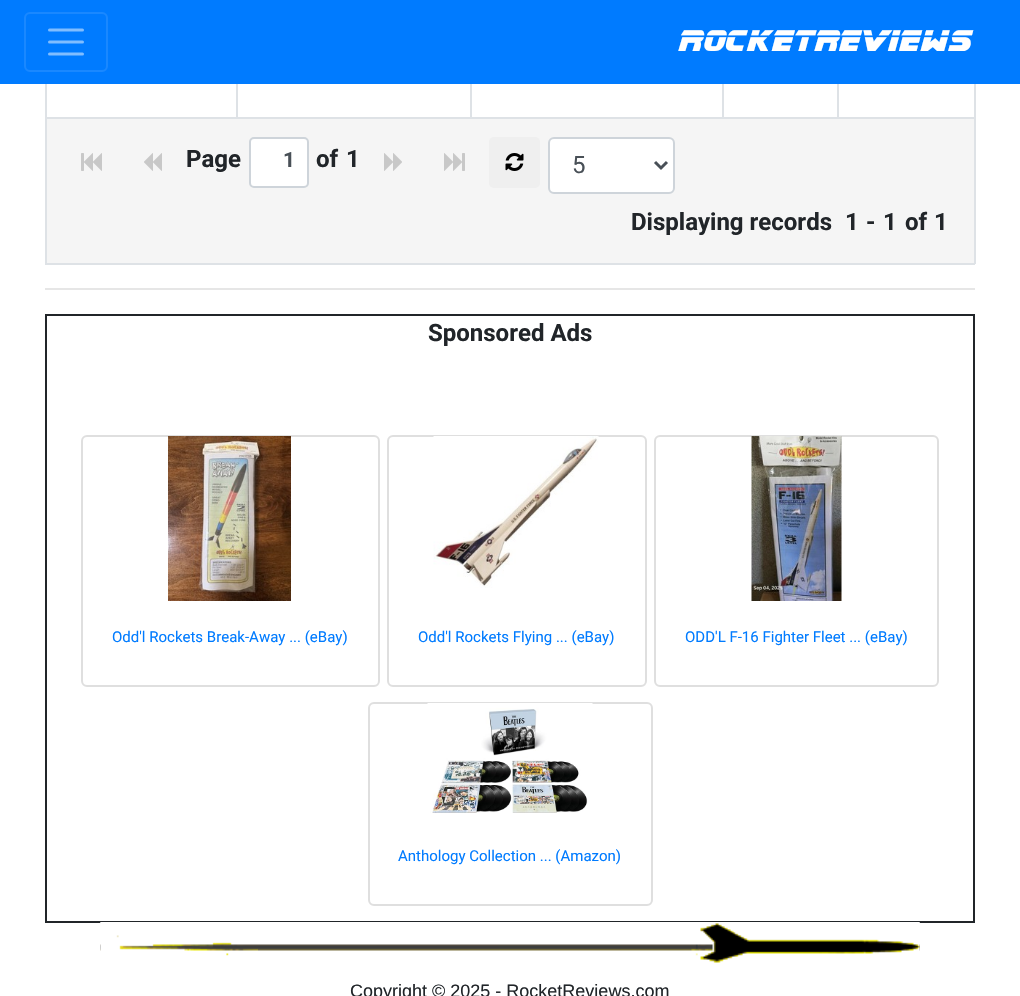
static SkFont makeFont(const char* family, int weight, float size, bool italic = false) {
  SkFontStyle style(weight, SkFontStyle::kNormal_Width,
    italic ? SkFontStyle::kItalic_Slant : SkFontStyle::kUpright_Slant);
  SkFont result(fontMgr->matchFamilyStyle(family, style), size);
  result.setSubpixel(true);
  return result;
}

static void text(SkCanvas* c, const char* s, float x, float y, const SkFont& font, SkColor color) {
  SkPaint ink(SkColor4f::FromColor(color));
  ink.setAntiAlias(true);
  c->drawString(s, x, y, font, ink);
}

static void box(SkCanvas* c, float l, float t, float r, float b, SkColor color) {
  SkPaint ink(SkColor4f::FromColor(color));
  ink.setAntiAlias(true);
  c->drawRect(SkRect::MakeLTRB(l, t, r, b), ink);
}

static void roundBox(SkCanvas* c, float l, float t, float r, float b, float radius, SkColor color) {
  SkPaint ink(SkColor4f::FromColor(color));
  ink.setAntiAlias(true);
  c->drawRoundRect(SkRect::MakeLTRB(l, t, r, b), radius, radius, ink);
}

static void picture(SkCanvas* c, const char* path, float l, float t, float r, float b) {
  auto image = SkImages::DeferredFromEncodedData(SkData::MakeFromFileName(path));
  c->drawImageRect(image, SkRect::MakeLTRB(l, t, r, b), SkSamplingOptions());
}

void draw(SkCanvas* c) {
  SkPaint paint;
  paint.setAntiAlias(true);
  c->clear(0xffffffff);
  box(c, 0, 0, 1020, 84, 0xff007bff);
  paint.setStyle(SkPaint::kStroke_Style);
  paint.setStrokeWidth(2);
  paint.setColor(0xff1a88ff);
  c->drawRoundRect(SkRect::MakeLTRB(25, 13, 107, 71), 5, 5, paint);
  paint.setStrokeWidth(3);
  paint.setStrokeCap(SkPaint::kRound_Cap);
  paint.setColor(0xff80bdff);
  c->drawPath(SkPathBuilder().moveTo(49.5f, 30).lineTo(82.5f, 30).moveTo(49.5f, 42).lineTo(82.5f, 42).moveTo(49.5f, 54).lineTo(82.5f, 54).detach(), paint);
  SkFont face1 = makeFont("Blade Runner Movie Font", 700, 30, true);
  text(c, "RocketReviews", 679, 51, face1, 0xffffffff);
  box(c, 974, 84, 976, 264, 0xffdee2e6);
  box(c, 45, 263, 975, 265, 0xffdee2e6);
  box(c, 45, 84, 47, 264, 0xffdee2e6);
  box(c, 45, 117, 975, 119, 0xffdee2e6);
  box(c, 236, 84, 238, 119, 0xffdee2e6);
  box(c, 470, 84, 472, 119, 0xffdee2e6);
  box(c, 722, 84, 724, 119, 0xffdee2e6);
  box(c, 837, 84, 839, 119, 0xffdee2e6);
  box(c, 47, 119, 974, 263, 0xfff5f5f5);
  picture(c, "img_01.png", 81, 153, 102, 171);
  picture(c, "img_02.png", 144, 153, 162, 171);
  SkFont face2 = makeFont("Roboto", 700, 24);
  text(c, "Page", 186, 167, face2, 0xff212529);
  paint.setStyle(SkPaint::kFill_Style);
  paint.setColor(0xffffffff);
  c->drawRoundRect(SkRect::MakeLTRB(250, 138, 308, 187), 4, 4, paint);
  paint.setStyle(SkPaint::kStroke_Style);
  paint.setStrokeWidth(2);
  paint.setStrokeCap(SkPaint::kButt_Cap);
  paint.setColor(0xffced4da);
  c->drawRoundRect(SkRect::MakeLTRB(250, 138, 308, 187), 4, 4, paint);
  SkFont face3 = makeFont("Roboto", 700, 21);
  text(c, "1", 283, 167, face3, 0xff495057);
  text(c, "of", 316, 167, face2, 0xff212529);
  text(c, "1", 346, 167, face2, 0xff212529);
  picture(c, "img_03.png", 384, 153, 402, 171);
  picture(c, "img_04.png", 444, 153, 465, 171);
  roundBox(c, 489, 137, 540, 188, 5, 0xffefefef);
  picture(c, "img_05.png", 505, 153, 524, 171);
  paint.setStyle(SkPaint::kFill_Style);
  paint.setColor(0xffffffff);
  c->drawRoundRect(SkRect::MakeLTRB(549, 138, 674, 193), 5, 5, paint);
  paint.setStyle(SkPaint::kStroke_Style);
  paint.setColor(0xffced4da);
  c->drawRoundRect(SkRect::MakeLTRB(549, 138, 674, 193), 5, 5, paint);
  paint.setStrokeWidth(3);
  paint.setColor(0xff495057);
  c->drawPath(SkPathBuilder().moveTo(655, 162).lineTo(661, 168).lineTo(667, 162).detach(), paint);
  SkFont face4 = makeFont("Roboto", 400, 24);
  text(c, "5", 572, 173, face4, 0xff495057);
  text(c, "Displaying records", 631, 230, face2, 0xff212529);
  text(c, "1", 845, 230, face2, 0xff212529);
  text(c, "-", 866, 230, face2, 0xff212529);
  text(c, "1", 883, 230, face2, 0xff212529);
  text(c, "of", 905, 230, face2, 0xff212529);
  text(c, "1", 934, 230, face2, 0xff212529);
  box(c, 45, 288, 975, 290, 0xffe6e6e6);
  paint.setStrokeWidth(2);
  paint.setColor(0xff212529);
  c->drawRect(SkRect::MakeLTRB(46, 315, 974, 922), paint);
  text(c, "Sponsored Ads", 428, 341, face2, 0xff212529);
  paint.setColor(0xffdfdfdf);
  c->drawRoundRect(SkRect::MakeLTRB(82, 436, 379, 686), 5, 5, paint);
  picture(c, "img_06.png", 168, 436, 291, 601);
  SkFont face5 = makeFont("Roboto", 400, 15);
  text(c, "Odd'l Rockets Break-Away ... (eBay)", 112, 642, face5, 0xff007bff);
  c->drawRoundRect(SkRect::MakeLTRB(388, 436, 646, 686), 5, 5, paint);
  picture(c, "img_07.png", 433, 436, 599, 588);
  text(c, "Odd'l Rockets Flying ... (eBay)", 418, 642, face5, 0xff007bff);
  c->drawRoundRect(SkRect::MakeLTRB(655, 436, 938, 686), 5, 5, paint);
  picture(c, "img_08.png", 751, 436, 842, 601);
  text(c, "ODD'L F-16 Fighter Fleet ... (eBay)", 685, 642, face5, 0xff007bff);
  c->drawRoundRect(SkRect::MakeLTRB(369, 703, 652, 905), 5, 5, paint);
  picture(c, "img_09.png", 427, 703, 593, 813);
  text(c, "Anthology Collection ... (Amazon)", 398, 861, face5, 0xff007bff);
  picture(c, "img_10.png", 100, 922, 920, 951);
  picture(c, "img_11.png", 100, 922, 258, 956);
  picture(c, "img_12.png", 691, 922, 920, 963);
  SkFont face6 = makeFont("Liberation Sans", 400, 18);
  text(c, "Copyright © 2025 - RocketReviews.com", 350, 997, face6, 0xff212529);
}
